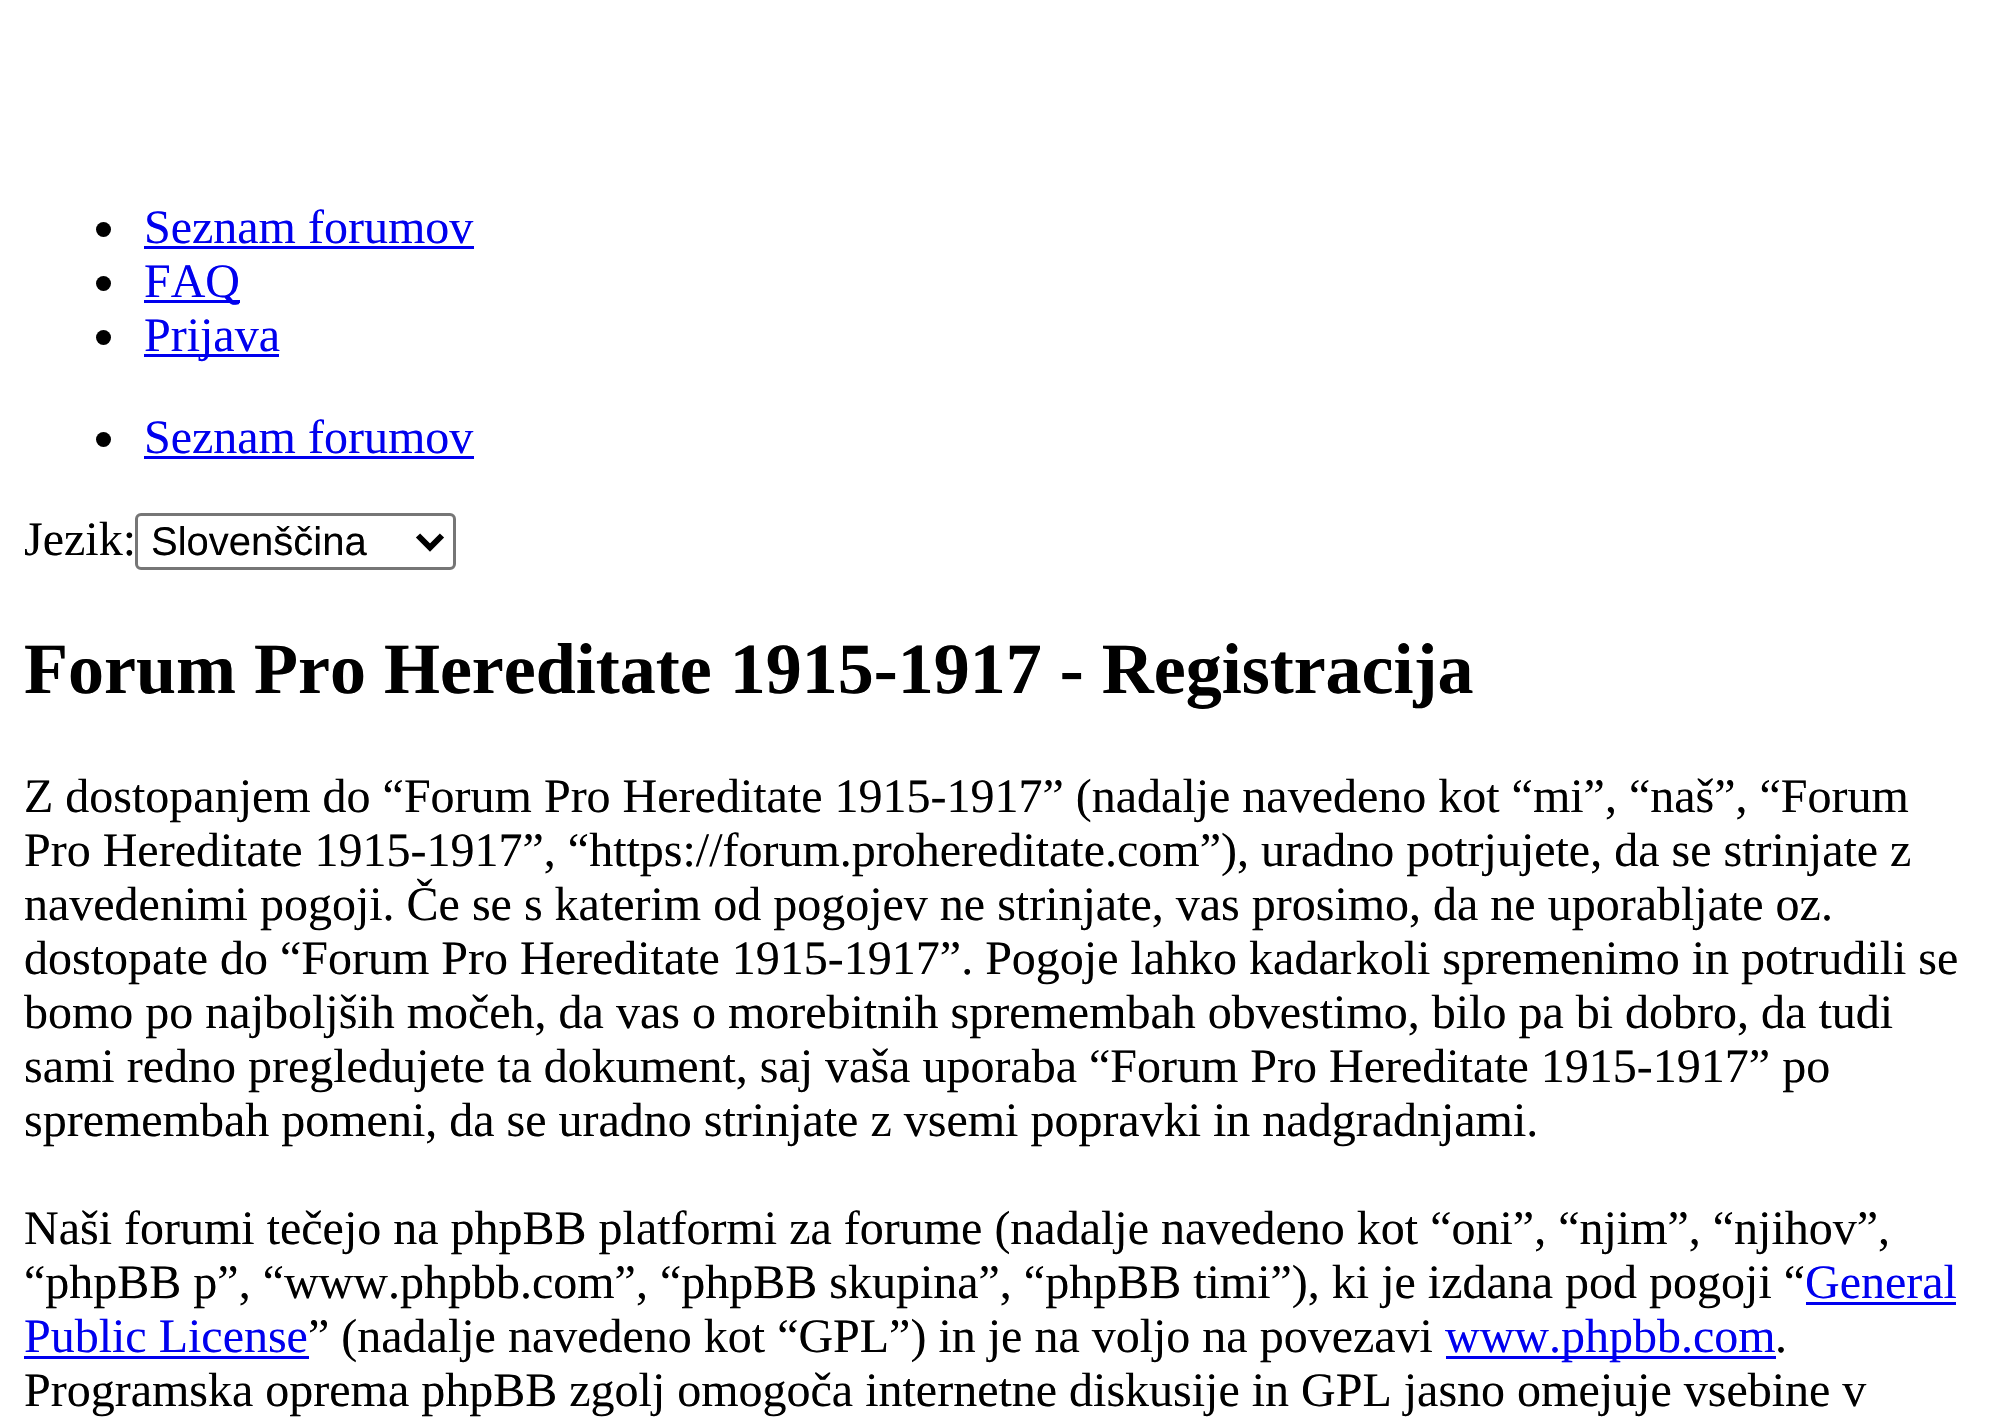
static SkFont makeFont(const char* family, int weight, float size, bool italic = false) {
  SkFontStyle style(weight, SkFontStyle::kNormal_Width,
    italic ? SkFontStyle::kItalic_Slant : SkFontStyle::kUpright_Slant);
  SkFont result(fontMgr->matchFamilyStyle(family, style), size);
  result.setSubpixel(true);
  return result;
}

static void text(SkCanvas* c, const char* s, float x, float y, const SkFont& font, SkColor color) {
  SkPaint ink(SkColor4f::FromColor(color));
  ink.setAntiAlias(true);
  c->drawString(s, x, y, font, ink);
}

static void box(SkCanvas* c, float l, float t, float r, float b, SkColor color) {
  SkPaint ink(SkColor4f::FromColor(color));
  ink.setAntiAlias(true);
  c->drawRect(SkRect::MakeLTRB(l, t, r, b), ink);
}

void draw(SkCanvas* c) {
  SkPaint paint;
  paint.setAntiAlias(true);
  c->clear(0xffffffff);
  paint.setColor(0xff000000);
  c->drawCircle(103.5f, 229.5f, 7.5f, paint);
  SkFont face1 = makeFont("Liberation Serif", 400, 48);
  text(c, "Seznam forumov", 144, 243, face1, 0xff0000ee);
  box(c, 144, 246, 474, 249, 0xff0000ee);
  c->drawCircle(103.5f, 283.5f, 7.5f, paint);
  box(c, 144, 300, 240, 303, 0xff0000ee);
  text(c, "FAQ", 144, 297, face1, 0xff0000ee);
  c->drawCircle(103.5f, 337.5f, 7.5f, paint);
  box(c, 144, 354, 279, 357, 0xff0000ee);
  text(c, "Prijava", 144, 351, face1, 0xff0000ee);
  c->drawCircle(103.5f, 439.5f, 7.5f, paint);
  text(c, "Seznam forumov", 144, 453, face1, 0xff0000ee);
  box(c, 144, 456, 474, 459, 0xff0000ee);
  text(c, "Jezik:", 24, 555, face1, 0xff000000);
  paint.setStyle(SkPaint::kStroke_Style);
  paint.setStrokeWidth(3);
  paint.setColor(0xff767676);
  c->drawRoundRect(SkRect::MakeLTRB(136.5f, 514.5f, 454.5f, 568.5f), 4.5f, 4.5f, paint);
  paint.setStrokeWidth(6);
  paint.setColor(0xff000000);
  c->drawPath(SkPathBuilder().moveTo(418, 535.5f).lineTo(430, 547.5f).lineTo(442, 535.5f).detach(), paint);
  SkFont face2 = makeFont("Liberation Sans", 400, 40);
  text(c, "Slovenščina", 151, 555, face2, 0xff000000);
  SkFont face3 = makeFont("Liberation Serif", 700, 72);
  text(c, "Forum Pro Hereditate 1915-1917 - Registracija", 24, 693, face3, 0xff000000);
  text(c, "Z dostopanjem do “Forum Pro Hereditate 1915-1917” (nadalje navedeno kot “mi”, “naš”, “Forum", 24, 812, face1, 0xff000000);
  text(c, "Pro Hereditate 1915-1917”, “https://forum.prohereditate.com”), uradno potrjujete, da se strinjate z", 24, 866, face1, 0xff000000);
  text(c, "navedenimi pogoji. Če se s katerim od pogojev ne strinjate, vas prosimo, da ne uporabljate oz.", 24, 920, face1, 0xff000000);
  text(c, "dostopate do “Forum Pro Hereditate 1915-1917”. Pogoje lahko kadarkoli spremenimo in potrudili se", 24, 974, face1, 0xff000000);
  text(c, "bomo po najboljših močeh, da vas o morebitnih spremembah obvestimo, bilo pa bi dobro, da tudi", 24, 1028, face1, 0xff000000);
  text(c, "sami redno pregledujete ta dokument, saj vaša uporaba “Forum Pro Hereditate 1915-1917” po", 24, 1082, face1, 0xff000000);
  text(c, "spremembah pomeni, da se uradno strinjate z vsemi popravki in nadgradnjami.", 24, 1136, face1, 0xff000000);
  text(c, "Naši forumi tečejo na phpBB platformi za forume (nadalje navedeno kot “oni”, “njim”, “njihov”,", 24, 1244, face1, 0xff000000);
  text(c, "“phpBB p”, “www.phpbb.com”, “phpBB skupina”, “phpBB timi”), ki je izdana pod pogoji “", 24, 1298, face1, 0xff000000);
  text(c, "General", 1805, 1298, face1, 0xff0000ee);
  box(c, 1806, 1302, 1956, 1305, 0xff0000ee);
  text(c, "Public License", 24, 1352, face1, 0xff0000ee);
  box(c, 24, 1356, 309, 1359, 0xff0000ee);
  text(c, "” (nadalje navedeno kot “GPL”) in je na voljo na povezavi", 308, 1352, face1, 0xff000000);
  box(c, 1446, 1356, 1776, 1359, 0xff0000ee);
  text(c, "www.phpbb.com", 1445, 1352, face1, 0xff0000ee);
  text(c, ".", 1775, 1352, face1, 0xff000000);
  text(c, "Programska oprema phpBB zgolj omogoča internetne diskusije in GPL jasno omejuje vsebine v", 24, 1406, face1, 0xff000000);
}
